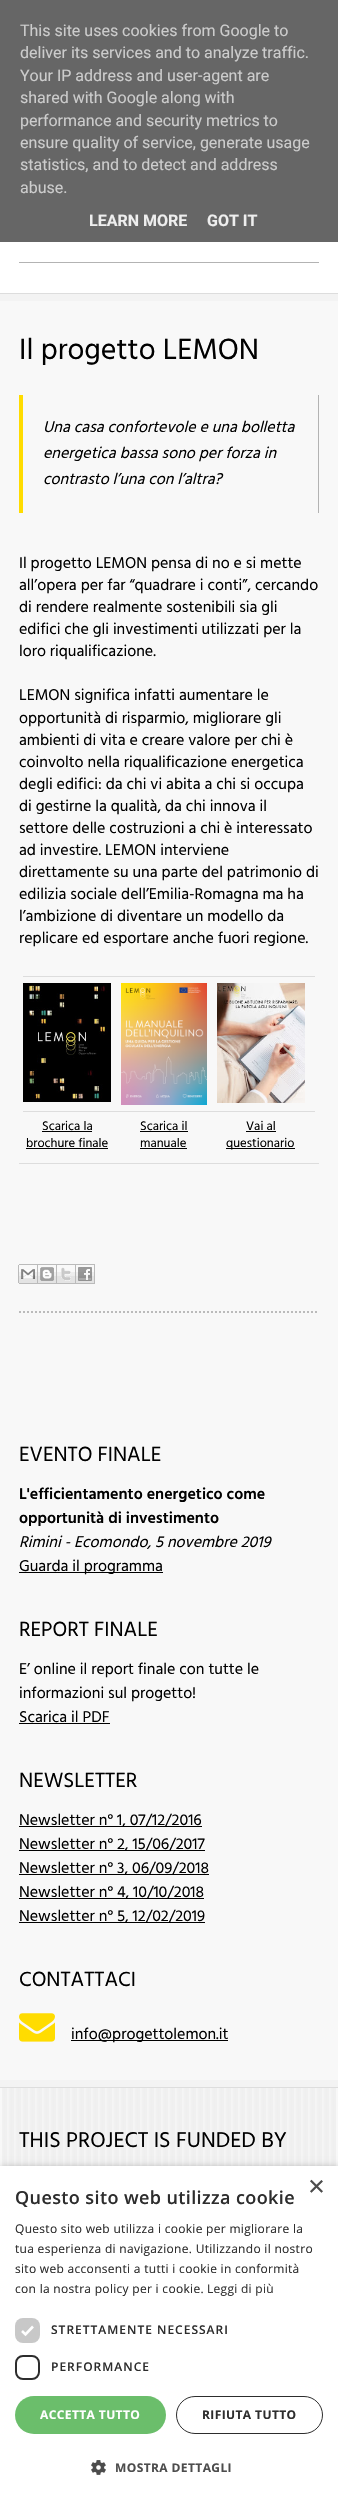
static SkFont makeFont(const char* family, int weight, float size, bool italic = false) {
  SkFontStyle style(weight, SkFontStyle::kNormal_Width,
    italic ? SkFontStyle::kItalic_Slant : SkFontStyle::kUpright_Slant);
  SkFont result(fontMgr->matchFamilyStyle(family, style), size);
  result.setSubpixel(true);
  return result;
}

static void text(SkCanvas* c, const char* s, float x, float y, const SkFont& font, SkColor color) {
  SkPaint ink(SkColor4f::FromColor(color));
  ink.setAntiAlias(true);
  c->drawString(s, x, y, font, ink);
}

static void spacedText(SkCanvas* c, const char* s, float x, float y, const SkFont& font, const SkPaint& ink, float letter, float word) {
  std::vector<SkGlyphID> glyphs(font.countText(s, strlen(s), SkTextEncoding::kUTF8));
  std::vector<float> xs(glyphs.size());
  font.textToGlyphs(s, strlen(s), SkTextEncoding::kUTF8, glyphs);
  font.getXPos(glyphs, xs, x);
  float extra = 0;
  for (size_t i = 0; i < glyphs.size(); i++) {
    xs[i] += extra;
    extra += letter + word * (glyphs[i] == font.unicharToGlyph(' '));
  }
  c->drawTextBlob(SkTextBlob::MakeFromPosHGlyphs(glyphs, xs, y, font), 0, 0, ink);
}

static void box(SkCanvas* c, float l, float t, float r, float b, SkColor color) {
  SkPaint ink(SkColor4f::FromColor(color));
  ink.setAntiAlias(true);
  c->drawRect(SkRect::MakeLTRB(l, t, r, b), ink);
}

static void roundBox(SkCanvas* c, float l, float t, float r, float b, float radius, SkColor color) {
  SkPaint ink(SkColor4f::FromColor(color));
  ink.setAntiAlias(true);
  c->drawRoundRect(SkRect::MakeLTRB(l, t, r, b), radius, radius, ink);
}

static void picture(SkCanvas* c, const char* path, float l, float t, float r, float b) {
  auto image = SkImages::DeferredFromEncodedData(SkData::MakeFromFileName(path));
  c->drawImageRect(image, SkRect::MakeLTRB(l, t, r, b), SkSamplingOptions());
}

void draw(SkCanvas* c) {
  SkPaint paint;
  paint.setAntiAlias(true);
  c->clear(0xfff8f8f8);
  box(c, 0, 0, 338, 242, 0xff666666);
  SkFont face1 = makeFont("Roboto", 400, 16);
  text(c, "This site uses cookies from Google to", 20, 36, face1, 0xffcccccc);
  text(c, "deliver its services and to analyze traffic.", 20, 58, face1, 0xffcccccc);
  text(c, "Your IP address and user-agent are", 20, 81, face1, 0xffcccccc);
  text(c, "shared with Google along with", 20, 103, face1, 0xffcccccc);
  text(c, "performance and security metrics to", 20, 126, face1, 0xffcccccc);
  text(c, "ensure quality of service, generate usage", 20, 148, face1, 0xffcccccc);
  text(c, "statistics, and to detect and address", 20, 170, face1, 0xffcccccc);
  text(c, "abuse.", 20, 193, face1, 0xffcccccc);
  SkFont face2 = makeFont("Roboto", 700, 16);
  text(c, "LEARN MORE", 89, 226, face2, 0xffeeeeee);
  text(c, "GOT IT", 207, 226, face2, 0xffeeeeee);
  box(c, 0, 294, 338, 301, 0xfff3f3f3);
  box(c, 0, 242, 338, 293, 0xffffffff);
  box(c, 0, 293, 338, 294, 0xffdddddd);
  box(c, 19, 262, 319, 263, 0xffb3b3b3);
  SkFont face3 = makeFont("Hind", 400, 30);
  text(c, "Il progetto LEMON", 19, 359, face3, 0xff000000);
  box(c, 318, 395, 319, 513, 0xffb3b3b3);
  box(c, 19, 395, 23, 513, 0xffffdc00);
  SkFont face4 = makeFont("Hind", 400, 16, true);
  text(c, "Una casa confortevole e una bolletta", 43, 432, face4, 0xff000000);
  text(c, "energetica bassa sono per forza in", 43, 458, face4, 0xff000000);
  text(c, "contrasto l’una con l’altra?", 43, 484, face4, 0xff000000);
  SkFont face5 = makeFont("Hind", 400, 16);
  text(c, "Il progetto LEMON pensa di no e si mette", 19, 568, face5, 0xff000000);
  text(c, "all’opera per far “quadrare i conti”, cercando", 19, 590, face5, 0xff000000);
  text(c, "di rendere realmente sostenibili sia gli", 19, 612, face5, 0xff000000);
  text(c, "edifici che gli investimenti utilizzati per la", 19, 634, face5, 0xff000000);
  text(c, "loro riqualificazione.", 19, 656, face5, 0xff000000);
  text(c, "LEMON significa infatti aumentare le", 19, 700, face5, 0xff000000);
  text(c, "opportunità di risparmio, migliorare gli", 19, 723, face5, 0xff000000);
  text(c, "ambienti di vita e creare valore per chi è", 19, 745, face5, 0xff000000);
  text(c, "coinvolto nella riqualificazione energetica", 19, 767, face5, 0xff000000);
  text(c, "degli edifici: da chi vi abita a chi si occupa", 19, 789, face5, 0xff000000);
  text(c, "di gestirne la qualità, da chi innova il", 19, 811, face5, 0xff000000);
  text(c, "settore delle costruzioni a chi è interessato", 19, 833, face5, 0xff000000);
  text(c, "ad investire. LEMON interviene", 19, 855, face5, 0xff000000);
  text(c, "direttamente su una parte del patrimonio di", 19, 877, face5, 0xff000000);
  text(c, "edilizia sociale dell’Emilia-Romagna ma ha", 19, 899, face5, 0xff000000);
  text(c, "l’ambizione di diventare un modello da", 19, 921, face5, 0xff000000);
  text(c, "replicare ed esportare anche fuori regione.", 19, 943, face5, 0xff000000);
  box(c, 19, 1163, 319, 1164, 0xffdddddd);
  box(c, 23, 976, 315, 977, 0xffdddddd);
  picture(c, "img_01.png", 23, 983, 111, 1102);
  picture(c, "img_02.png", 121, 983, 207, 1105);
  picture(c, "img_03.png", 217, 983, 305, 1103);
  box(c, 23, 1111, 315, 1112, 0xffdddddd);
  SkFont face6 = makeFont("Hind", 400, 12.75f);
  text(c, "Scarica la", 42, 1130, face6, 0xff000000);
  box(c, 42, 1131, 92, 1132, 0xff000000);
  text(c, "brochure finale", 26, 1147, face6, 0xff000000);
  box(c, 26, 1148, 108, 1149, 0xff000000);
  text(c, "Scarica il", 140, 1130, face6, 0xff000000);
  box(c, 140, 1131, 188, 1132, 0xff000000);
  text(c, "manuale", 140, 1147, face6, 0xff000000);
  box(c, 140, 1148, 187, 1149, 0xff000000);
  text(c, "Vai al", 246, 1130, face6, 0xff000000);
  box(c, 246, 1131, 276, 1132, 0xff000000);
  box(c, 226, 1148, 295, 1149, 0xff000000);
  text(c, "questionario", 226, 1147, face6, 0xff000000);
  picture(c, "img_04.png", 18, 1264, 38, 1284);
  picture(c, "img_05.png", 38, 1264, 57, 1284);
  picture(c, "img_06.png", 57, 1264, 76, 1284);
  picture(c, "img_07.png", 76, 1264, 95, 1284);
  paint.setStyle(SkPaint::kStroke_Style);
  paint.setStrokeWidth(2);
  paint.setColor(0xffbbbbbb);
  paint.setPathEffect(SkDashPathEffect::Make({{2, 2}}, 0));
  c->drawPath(SkPathBuilder().moveTo(19, 1312).lineTo(319, 1312).detach(), paint);
  paint.setPathEffect(nullptr);
  SkFont face7 = makeFont("Hind", 400, 21);
  text(c, "EVENTO FINALE", 19, 1461, face7, 0xff000000);
  SkFont face8 = makeFont("Hind", 600, 16);
  text(c, "L'efficientamento energetico come", 19, 1499, face8, 0xff000000);
  text(c, "opportunità di investimento", 19, 1523, face8, 0xff000000);
  text(c, "Rimini - Ecomondo, 5 novembre 2019", 19, 1547, face4, 0xff000000);
  box(c, 19, 1572, 163, 1573, 0xff000000);
  text(c, "Guarda il programma", 19, 1571, face5, 0xff000000);
  text(c, "REPORT FINALE", 19, 1636, face7, 0xff000000);
  text(c, "E’ online il report finale con tutte le", 19, 1674, face5, 0xff000000);
  text(c, "informazioni sul progetto!", 19, 1698, face5, 0xff000000);
  text(c, "Scarica il PDF", 19, 1722, face5, 0xff000000);
  box(c, 19, 1723, 110, 1724, 0xff000000);
  text(c, "NEWSLETTER", 19, 1787, face7, 0xff000000);
  box(c, 19, 1826, 202, 1827, 0xff000000);
  text(c, "Newsletter n° 1, 07/12/2016", 19, 1825, face5, 0xff000000);
  box(c, 19, 1850, 205, 1851, 0xff000000);
  text(c, "Newsletter n° 2, 15/06/2017", 19, 1849, face5, 0xff000000);
  box(c, 19, 1874, 209, 1875, 0xff000000);
  text(c, "Newsletter n° 3, 06/09/2018", 19, 1873, face5, 0xff000000);
  box(c, 19, 1898, 204, 1899, 0xff000000);
  text(c, "Newsletter n° 4, 10/10/2018", 19, 1897, face5, 0xff000000);
  box(c, 19, 1922, 205, 1923, 0xff000000);
  text(c, "Newsletter n° 5, 12/02/2019", 19, 1921, face5, 0xff000000);
  text(c, "CONTATTACI", 19, 1986, face7, 0xff000000);
  picture(c, "img_08.png", 19, 2013, 55, 2042);
  box(c, 71, 2040, 228, 2041, 0xff000000);
  text(c, "info@progettolemon.it", 71, 2039, face5, 0xff000000);
  box(c, 0, 2080, 338, 2087, 0xfff3f3f3);
  picture(c, "img_09.png", 2, 2088, 336, 2166);
  box(c, 0, 2087, 338, 2088, 0xffdddddd);
  SkFont face9 = makeFont("Hind", 400, 22);
  text(c, "THIS PROJECT IS FUNDED BY", 19, 2147, face9, 0xff000000);
  paint.setStyle(SkPaint::kFill_Style);
  paint.setColor(0x59000000);
  paint.setMaskFilter(SkMaskFilter::MakeBlur(kNormal_SkBlurStyle, 4));
  c->drawRect(SkRect::MakeLTRB(1, 2168, 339, 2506), paint);
  paint.setMaskFilter(nullptr);
  box(c, 0, 2166, 338, 2504, 0xffffffff);
  SkFont face10 = makeFont("Liberation Sans", 400, 29);
  text(c, "×", 308, 2196, face10, 0xff4d4d4d);
  SkFont face11 = makeFont("Open Sans", 600, 18);
  paint.setColor(0xff2d2d2d);
  spacedText(c, "Questo sito web utilizza cookie", 15, 2204, face11, paint, 0.4f, 0);
  SkFont face12 = makeFont("Open Sans", 400, 12);
  spacedText(c, "Questo sito web utilizza i cookie per migliorare la", 15, 2233, face12, paint, 0.3f, 0);
  spacedText(c, "tua esperienza di navigazione. Utilizzando il nostro", 15, 2253, face12, paint, 0.3f, 0);
  spacedText(c, "sito web acconsenti a tutti i cookie in conformità", 15, 2273, face12, paint, 0.3f, 0);
  spacedText(c, "con la nostra policy per i cookie.", 15, 2293, face12, paint, 0.3f, 0);
  paint.setColor(0xff333333);
  spacedText(c, "Leggi di più", 207, 2293, face12, paint, 0.3f, 0);
  roundBox(c, 15, 2318, 40, 2343, 8, 0xffc8c8c8);
  paint.setStyle(SkPaint::kStroke_Style);
  paint.setStrokeWidth(2.6f);
  paint.setColor(0xffffffff);
  c->drawPath(SkPathBuilder().moveTo(22, 2331).lineTo(25.5f, 2334.5f).lineTo(33, 2326.5f).detach(), paint);
  SkFont face13 = makeFont("Open Sans", 600, 12);
  paint.setStyle(SkPaint::kFill_Style);
  paint.setColor(0xff2d2d2d);
  spacedText(c, "STRETTAMENTE NECESSARI", 51, 2334, face13, paint, 1, 0);
  paint.setStyle(SkPaint::kStroke_Style);
  paint.setStrokeWidth(2);
  c->drawRoundRect(SkRect::MakeLTRB(16, 2356, 39, 2379), 7, 7, paint);
  paint.setStyle(SkPaint::kFill_Style);
  spacedText(c, "PERFORMANCE", 51, 2371, face13, paint, 1, 0);
  roundBox(c, 15, 2396, 166, 2434, 19, 0xff6bbe6b);
  SkFont face14 = makeFont("Open Sans", 700, 12);
  paint.setColor(0xffffffff);
  spacedText(c, "ACCETTA TUTTO", 40, 2419, face14, paint, 0.4f, 0);
  paint.setStyle(SkPaint::kStroke_Style);
  paint.setStrokeWidth(1);
  paint.setColor(0xff2d2d2d);
  c->drawRoundRect(SkRect::MakeLTRB(176.5f, 2396.5f, 322.5f, 2433.5f), 18.5f, 18.5f, paint);
  paint.setStyle(SkPaint::kFill_Style);
  spacedText(c, "RIFIUTA TUTTO", 202, 2419, face14, paint, 0.4f, 0);
  picture(c, "img_10.png", 91, 2460, 106, 2475);
  paint.setColor(0xff4d4d4d);
  spacedText(c, "MOSTRA DETTAGLI", 115, 2472, face14, paint, 0.4f, 0);
}
